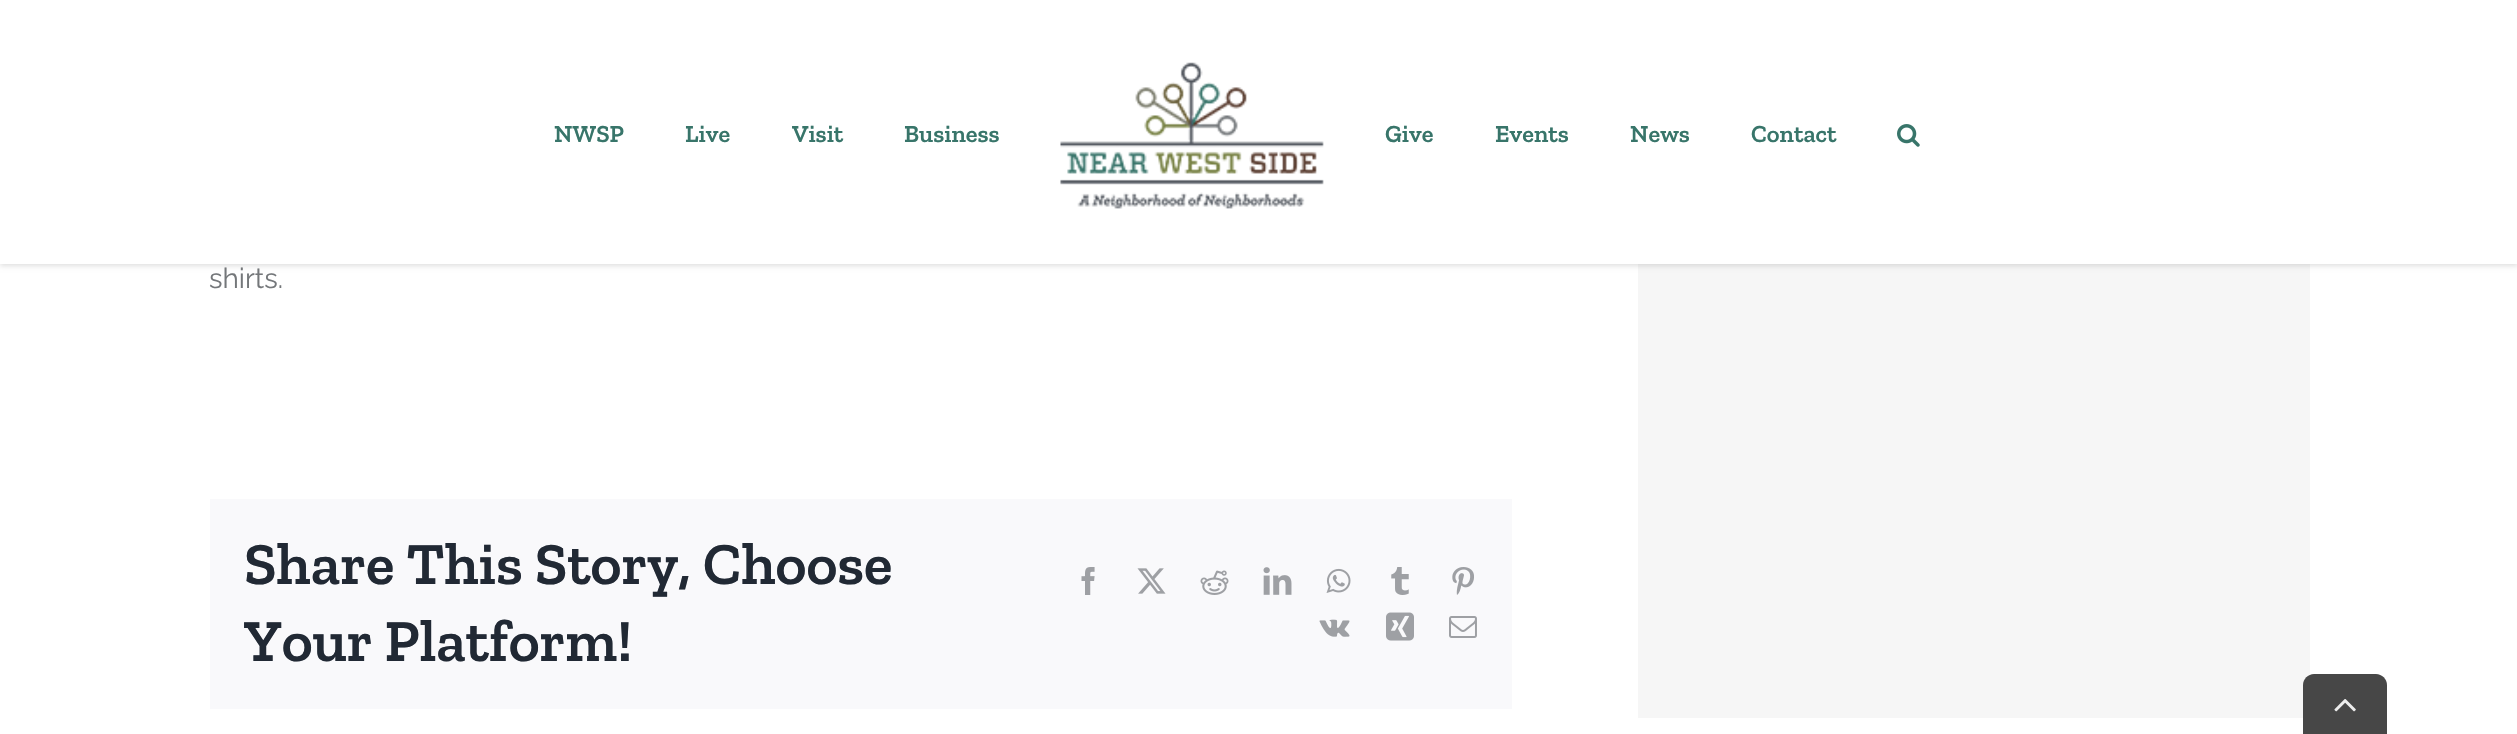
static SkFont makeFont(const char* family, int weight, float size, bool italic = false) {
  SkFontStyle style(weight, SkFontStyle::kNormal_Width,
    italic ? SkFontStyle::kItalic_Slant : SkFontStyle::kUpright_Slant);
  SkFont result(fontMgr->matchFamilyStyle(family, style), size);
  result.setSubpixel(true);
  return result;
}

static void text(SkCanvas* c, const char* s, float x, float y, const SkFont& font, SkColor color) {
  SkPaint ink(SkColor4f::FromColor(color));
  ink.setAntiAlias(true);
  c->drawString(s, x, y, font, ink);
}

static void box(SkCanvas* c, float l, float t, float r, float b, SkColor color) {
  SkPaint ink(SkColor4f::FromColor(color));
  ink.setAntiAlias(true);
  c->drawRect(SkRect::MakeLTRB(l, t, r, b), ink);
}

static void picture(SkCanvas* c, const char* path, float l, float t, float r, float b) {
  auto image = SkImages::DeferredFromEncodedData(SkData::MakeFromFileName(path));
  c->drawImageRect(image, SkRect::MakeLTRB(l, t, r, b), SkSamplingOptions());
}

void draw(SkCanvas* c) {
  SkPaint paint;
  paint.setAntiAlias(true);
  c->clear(0xffffffff);
  box(c, 1638, 264, 2310, 718, 0xfff6f6f6);
  paint.setColor(0x1f000000);
  paint.setMaskFilter(SkMaskFilter::MakeBlur(kNormal_SkBlurStyle, 2.5f));
  c->drawRect(SkRect::MakeLTRB(0, 2, 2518, 266), paint);
  paint.setMaskFilter(nullptr);
  box(c, 0, 0, 2517, 264, 0xffffffff);
  SkFont face1 = makeFont("Zilla Slab", 600, 24.5f);
  text(c, "NWSP", 554, 142, face1, 0xff38756a);
  text(c, "Live", 685, 142, face1, 0xff38756a);
  text(c, "Visit", 792, 142, face1, 0xff38756a);
  text(c, "Business", 904, 142, face1, 0xff38756a);
  picture(c, "img_01.png", 1060, 62, 1324, 209);
  text(c, "Give", 1385, 142, face1, 0xff38756a);
  text(c, "Events", 1495, 142, face1, 0xff38756a);
  text(c, "News", 1630, 142, face1, 0xff38756a);
  text(c, "Contact", 1751, 142, face1, 0xff38756a);
  picture(c, "img_02.png", 1897, 124, 1920, 147);
  SkFont face2 = makeFont("Raleway", 400, 28);
  text(c, "shirts.", 209, 288, face2, 0xff74777a);
  box(c, 210, 499, 1512, 709, 0xfff9f9fb);
  SkFont face3 = makeFont("Zilla Slab", 600, 59.5f);
  text(c, "Share This Story, Choose", 244, 584, face3, 0xff212934);
  text(c, "Your Platform!", 244, 661, face3, 0xff212934);
  picture(c, "img_03.png", 1081, 567, 1095, 595);
  picture(c, "img_04.png", 1137, 568, 1166, 594);
  picture(c, "img_05.png", 1200, 570, 1229, 595);
  picture(c, "img_06.png", 1263, 567, 1292, 595);
  picture(c, "img_07.png", 1326, 568, 1351, 593);
  picture(c, "img_08.png", 1391, 567, 1409, 595);
  picture(c, "img_09.png", 1452, 567, 1474, 595);
  picture(c, "img_10.png", 1319, 619, 1350, 637);
  picture(c, "img_11.png", 1386, 612, 1414, 641);
  picture(c, "img_12.png", 1449, 616, 1477, 638);
  paint.setColor(0xe6333333);
  c->drawPath(SkPathBuilder().moveTo(2314, 674).lineTo(2376, 674).cubicTo(2382, 674, 2387, 679, 2387, 685).lineTo(2387, 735).lineTo(2303, 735).lineTo(2303, 685).cubicTo(2303, 679, 2308, 674, 2314, 674).close().detach(), paint);
  picture(c, "img_13.png", 2334, 699, 2356, 712);
}
